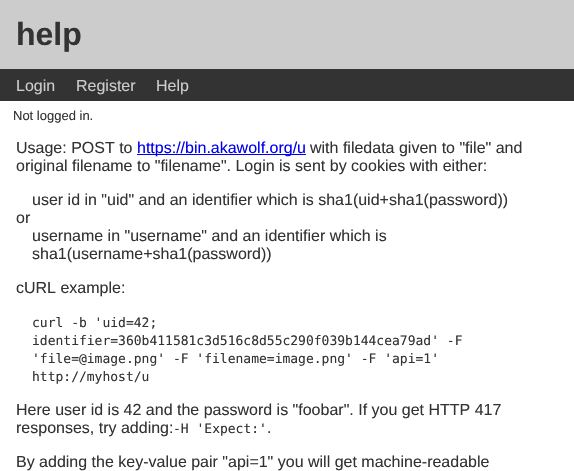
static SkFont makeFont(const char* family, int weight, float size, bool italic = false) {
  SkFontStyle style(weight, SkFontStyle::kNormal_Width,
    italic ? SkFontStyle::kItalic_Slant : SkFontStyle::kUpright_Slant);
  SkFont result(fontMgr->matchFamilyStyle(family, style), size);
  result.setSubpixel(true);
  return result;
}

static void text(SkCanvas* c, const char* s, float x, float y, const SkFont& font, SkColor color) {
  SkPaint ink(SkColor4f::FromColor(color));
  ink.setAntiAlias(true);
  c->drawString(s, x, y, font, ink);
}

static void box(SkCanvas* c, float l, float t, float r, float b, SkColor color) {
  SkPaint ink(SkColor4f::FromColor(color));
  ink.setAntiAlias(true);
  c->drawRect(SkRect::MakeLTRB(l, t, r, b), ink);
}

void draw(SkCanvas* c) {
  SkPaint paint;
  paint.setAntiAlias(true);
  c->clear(0xffffffff);
  box(c, 0, 0, 574, 69, 0xffcccccc);
  SkFont face1 = makeFont("Liberation Sans", 700, 32);
  text(c, "help", 16, 45, face1, 0xff333333);
  box(c, 0, 69, 574, 101, 0xff333333);
  SkFont face2 = makeFont("Liberation Sans", 400, 16);
  text(c, "Login", 16, 91, face2, 0xffcccccc);
  text(c, "Register", 76, 91, face2, 0xffcccccc);
  text(c, "Help", 156, 91, face2, 0xffcccccc);
  SkFont face3 = makeFont("Liberation Sans", 400, 13);
  text(c, "Not logged in.", 13, 120, face3, 0xff333333);
  text(c, "Usage: POST to", 16, 153, face2, 0xff333333);
  box(c, 137, 154, 306, 155, 0xff0000ee);
  text(c, "https://bin.akawolf.org/u", 137, 153, face2, 0xff0000ee);
  text(c, "with filedata given to \"file\" and", 310, 153, face2, 0xff333333);
  text(c, "original filename to \"filename\". Login is sent by cookies with either:", 16, 171, face2, 0xff333333);
  text(c, "user id in \"uid\" and an identifier which is sha1(uid+sha1(password))", 32, 205, face2, 0xff333333);
  text(c, "or", 16, 223, face2, 0xff333333);
  text(c, "username in \"username\" and an identifier which is", 32, 241, face2, 0xff333333);
  text(c, "sha1(username+sha1(password))", 32, 259, face2, 0xff333333);
  text(c, "cURL example:", 16, 293, face2, 0xff333333);
  SkFont face4 = makeFont("DejaVu Sans Mono", 400, 13);
  text(c, "curl -b 'uid=42;", 32, 327, face4, 0xff333333);
  text(c, "identifier=360b411581c3d516c8d55c290f039b144cea79ad' -F", 32, 345, face4, 0xff333333);
  text(c, "'file=@image.png' -F 'filename=image.png' -F 'api=1'", 32, 363, face4, 0xff333333);
  text(c, "http://myhost/u", 32, 381, face4, 0xff333333);
  text(c, "Here user id is 42 and the password is \"foobar\". If you get HTTP 417", 16, 415, face2, 0xff333333);
  text(c, "responses, try adding:", 16, 433, face2, 0xff333333);
  text(c, "-H 'Expect:'", 173, 433, face4, 0xff333333);
  text(c, ".", 267, 433, face2, 0xff333333);
  text(c, "By adding the key-value pair \"api=1\" you will get machine-readable", 16, 467, face2, 0xff333333);
}
